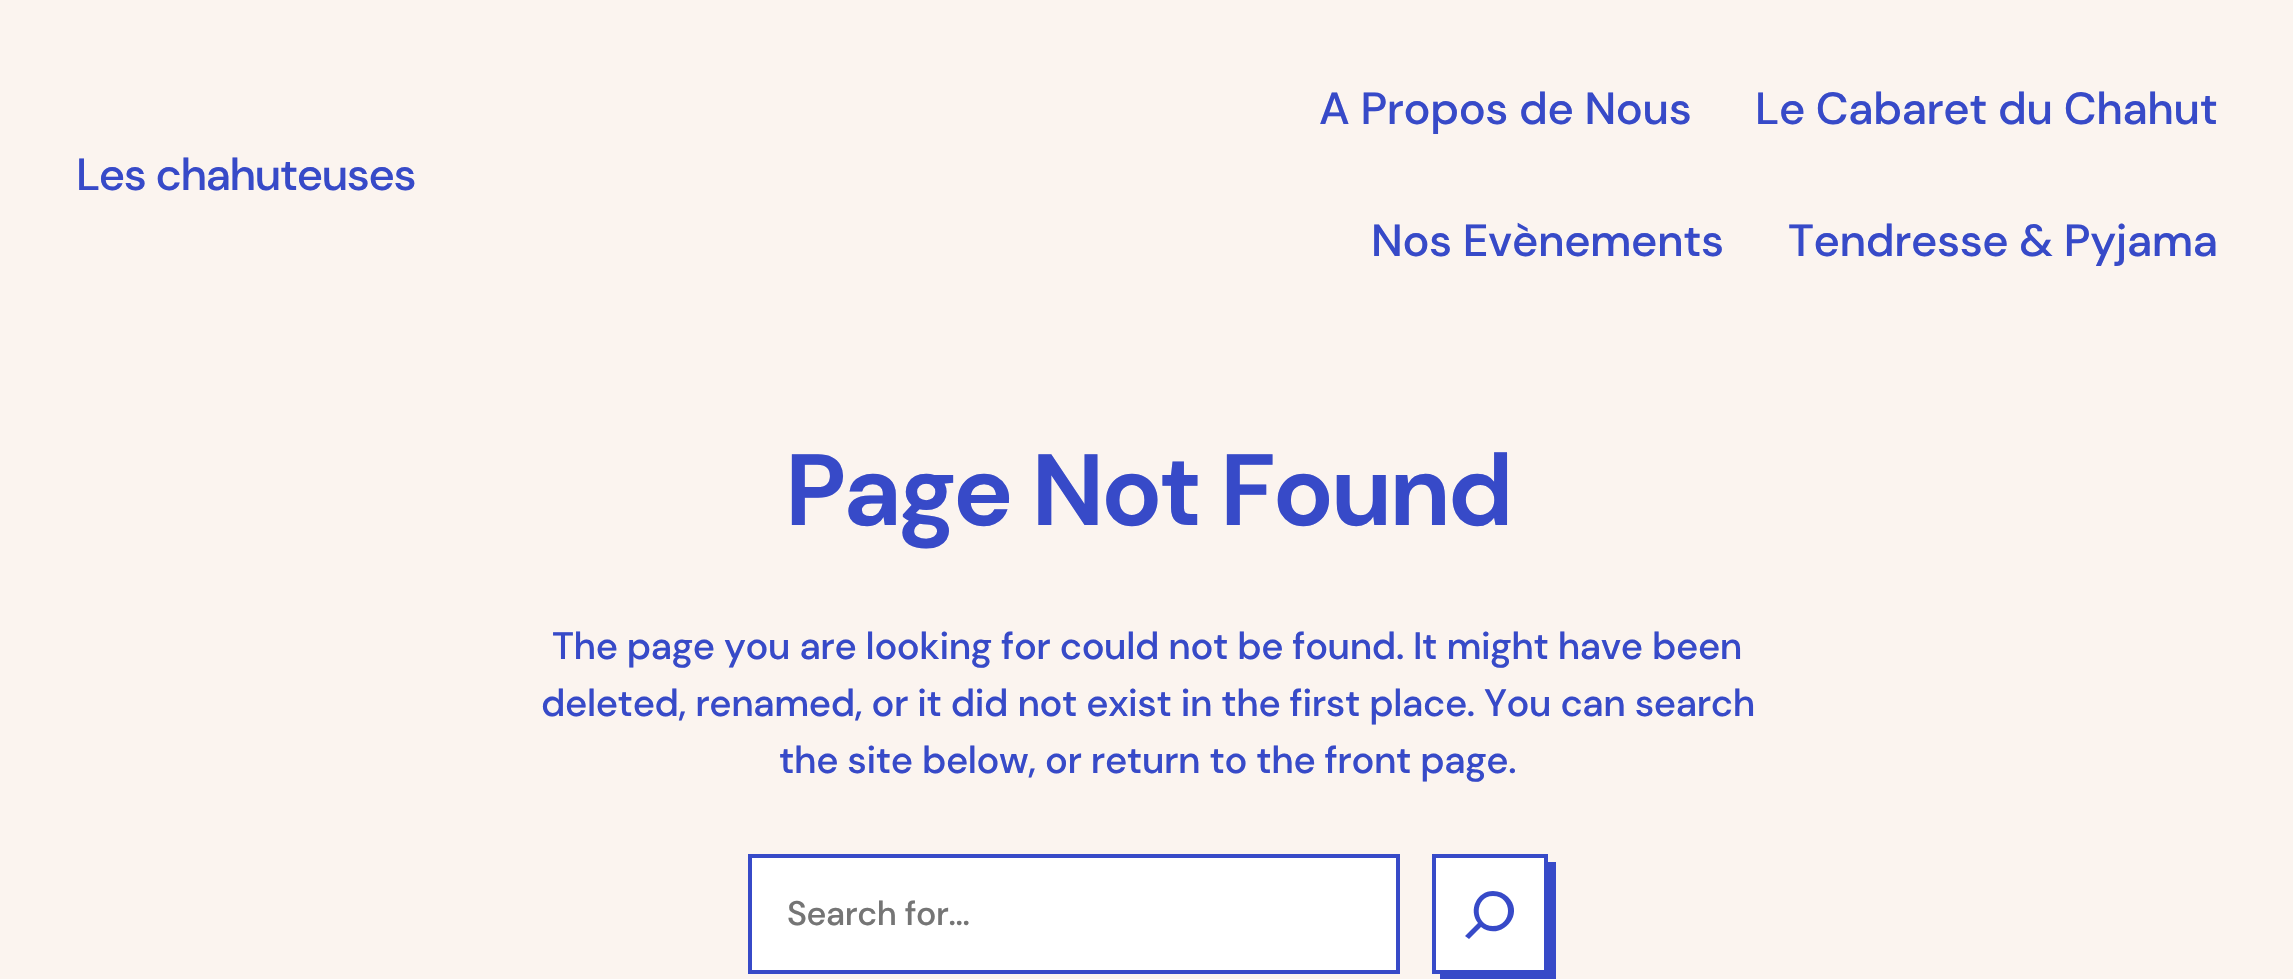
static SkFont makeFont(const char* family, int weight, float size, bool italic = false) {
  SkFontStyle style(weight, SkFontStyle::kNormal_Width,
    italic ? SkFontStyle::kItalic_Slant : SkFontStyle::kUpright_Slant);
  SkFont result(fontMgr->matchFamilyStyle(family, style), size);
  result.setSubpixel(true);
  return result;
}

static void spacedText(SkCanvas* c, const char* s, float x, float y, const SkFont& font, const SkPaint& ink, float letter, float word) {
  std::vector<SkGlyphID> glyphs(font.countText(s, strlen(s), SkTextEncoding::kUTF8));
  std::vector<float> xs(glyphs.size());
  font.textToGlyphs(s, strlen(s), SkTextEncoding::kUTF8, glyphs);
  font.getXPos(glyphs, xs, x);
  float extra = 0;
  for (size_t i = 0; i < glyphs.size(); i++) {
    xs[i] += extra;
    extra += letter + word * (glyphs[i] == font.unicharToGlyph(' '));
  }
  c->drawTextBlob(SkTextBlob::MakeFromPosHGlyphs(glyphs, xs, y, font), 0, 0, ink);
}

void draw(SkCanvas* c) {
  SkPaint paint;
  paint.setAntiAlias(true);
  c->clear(0xfffbf4ef);
  SkFont face1 = makeFont("DM Sans", 500, 45.1f);
  paint.setColor(0xff374ac8);
  spacedText(c, "Les chahuteuses", 76, 190, face1, paint, -1.4f, 0);
  spacedText(c, "A Propos de Nous", 1319, 124, face1, paint, -0.38f, 0);
  spacedText(c, "Le Cabaret du Chahut", 1755, 124, face1, paint, -0.38f, 0);
  spacedText(c, "Nos Evènements", 1371, 256, face1, paint, -0.38f, 0);
  spacedText(c, "Tendresse & Pyjama", 1788, 256, face1, paint, -0.38f, 0);
  SkFont face2 = makeFont("DM Sans", 700, 101);
  spacedText(c, "Page Not Found", 785, 525, face2, paint, -3, 0);
  SkFont face3 = makeFont("DM Sans", 500, 38.15f);
  spacedText(c, "The page you are looking for could not be found. It might have been", 552, 659, face3, paint, -0.38f, 0);
  spacedText(c, "deleted, renamed, or it did not exist in the first place. You can search", 541, 716, face3, paint, -0.38f, 0);
  spacedText(c, "the site below, or return to the front page.", 779, 773, face3, paint, -0.38f, 0);
  paint.setColor(0xffffffff);
  c->drawRect(SkRect::MakeLTRB(750, 856, 1398, 972), paint);
  paint.setStyle(SkPaint::kStroke_Style);
  paint.setStrokeWidth(4);
  paint.setColor(0xff374ac8);
  c->drawRect(SkRect::MakeLTRB(750, 856, 1398, 972), paint);
  SkFont face4 = makeFont("DM Sans", 500, 34);
  paint.setStyle(SkPaint::kFill_Style);
  paint.setColor(0xff757575);
  spacedText(c, "Search for...", 787, 925, face4, paint, -0.38f, 0);
  paint.setColor(0xff374ac8);
  c->drawPath(SkPathBuilder().moveTo(1440, 974).lineTo(1440, 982).lineTo(1556, 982).lineTo(1556, 862).lineTo(1548, 862).lineTo(1548, 974).close().detach(), paint);
  paint.setColor(0xffffffff);
  c->drawRect(SkRect::MakeLTRB(1434, 856, 1546, 972), paint);
  paint.setStyle(SkPaint::kStroke_Style);
  paint.setColor(0xff374ac8);
  c->drawRect(SkRect::MakeLTRB(1434, 856, 1546, 972), paint);
  paint.setStyle(SkPaint::kFill_Style);
  c->drawPath(SkPathBuilder().moveTo(1493, 891).cubicTo(1477, 891, 1468, 910, 1478, 923).lineTo(1465, 936).lineTo(1469, 939).lineTo(1481, 927).cubicTo(1500, 942, 1526, 915, 1508, 897).cubicTo(1504, 893, 1499, 891, 1493, 891).close().moveTo(1493, 926).cubicTo(1474, 926, 1474, 896, 1493, 896).cubicTo(1513, 896, 1513, 926, 1493, 926).close().detach(), paint);
}
